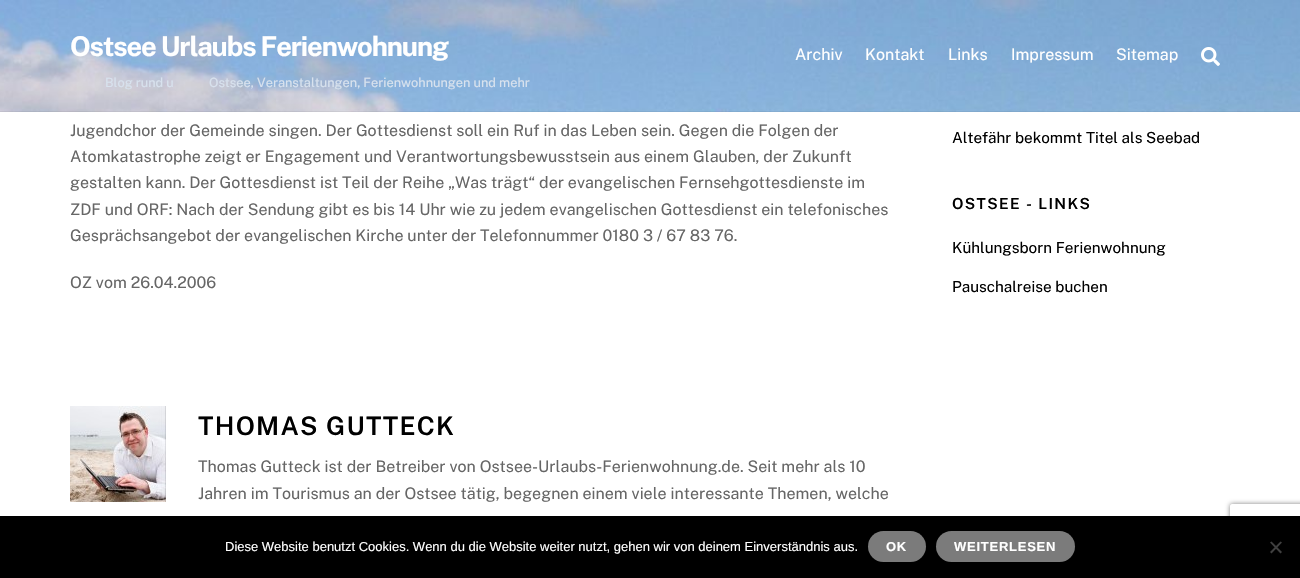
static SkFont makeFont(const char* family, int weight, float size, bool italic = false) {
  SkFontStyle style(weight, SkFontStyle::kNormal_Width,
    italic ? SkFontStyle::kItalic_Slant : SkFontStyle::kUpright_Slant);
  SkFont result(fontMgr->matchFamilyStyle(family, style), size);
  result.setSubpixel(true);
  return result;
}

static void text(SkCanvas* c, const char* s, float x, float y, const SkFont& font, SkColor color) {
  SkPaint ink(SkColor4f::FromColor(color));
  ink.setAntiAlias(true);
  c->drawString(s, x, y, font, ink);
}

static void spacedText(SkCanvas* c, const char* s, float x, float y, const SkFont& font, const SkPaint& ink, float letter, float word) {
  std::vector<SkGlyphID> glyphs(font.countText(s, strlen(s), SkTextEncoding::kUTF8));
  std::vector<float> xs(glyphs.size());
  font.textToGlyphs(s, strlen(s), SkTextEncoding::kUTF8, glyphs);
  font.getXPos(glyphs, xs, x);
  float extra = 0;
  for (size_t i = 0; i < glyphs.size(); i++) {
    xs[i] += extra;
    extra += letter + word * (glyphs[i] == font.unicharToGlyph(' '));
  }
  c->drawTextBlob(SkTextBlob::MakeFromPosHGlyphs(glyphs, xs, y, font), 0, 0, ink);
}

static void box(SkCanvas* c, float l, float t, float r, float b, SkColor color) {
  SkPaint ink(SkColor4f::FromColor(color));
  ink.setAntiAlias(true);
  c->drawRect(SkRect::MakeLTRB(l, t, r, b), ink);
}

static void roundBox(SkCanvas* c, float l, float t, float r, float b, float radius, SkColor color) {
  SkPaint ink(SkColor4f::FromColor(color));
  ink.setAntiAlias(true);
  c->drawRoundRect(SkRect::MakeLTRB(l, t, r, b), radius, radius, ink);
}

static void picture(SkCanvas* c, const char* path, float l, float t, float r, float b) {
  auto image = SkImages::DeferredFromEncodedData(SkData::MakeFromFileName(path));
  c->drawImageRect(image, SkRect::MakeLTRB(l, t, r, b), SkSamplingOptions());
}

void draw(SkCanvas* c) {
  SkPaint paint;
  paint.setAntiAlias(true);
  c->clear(0xffffffff);
  picture(c, "img_01.png", 0, 0, 1300, 112);
  box(c, 0, 111, 1300, 112, 0x0d000000);
  SkFont face1 = makeFont("Public Sans", 700, 27.25f);
  paint.setColor(0xffffffff);
  spacedText(c, "Ostsee Urlaubs Ferienwohnung", 70, 56, face1, paint, -1.1f, 0);
  SkFont face2 = makeFont("Public Sans", 400, 12.8f);
  text(c, "Blog rund u", 105, 87, face2, 0xffd8e2ee);
  text(c, "Ostsee, Veranstaltungen, Ferienwohnungen und mehr", 209, 87, face2, 0xffd8e2ee);
  SkFont face3 = makeFont("Public Sans", 400, 16);
  text(c, "Archiv", 795, 60, face3, 0xffffffff);
  text(c, "Kontakt", 865, 60, face3, 0xffffffff);
  text(c, "Links", 948, 60, face3, 0xffffffff);
  text(c, "Impressum", 1011, 60, face3, 0xffffffff);
  text(c, "Sitemap", 1116, 60, face3, 0xffffffff);
  picture(c, "img_02.png", 1201, 47, 1220, 66);
  text(c, "Jugendchor der Gemeinde singen. Der Gottesdienst soll ein Ruf in das Leben sein. Gegen die Folgen der", 70, 136, face3, 0xff666666);
  text(c, "Atomkatastrophe zeigt er Engagement und Verantwortungsbewusstsein aus einem Glauben, der Zukunft", 70, 162, face3, 0xff666666);
  text(c, "gestalten kann. Der Gottesdienst ist Teil der Reihe „Was trägt“ der evangelischen Fernsehgottesdienste im", 70, 188, face3, 0xff666666);
  text(c, "ZDF und ORF: Nach der Sendung gibt es bis 14 Uhr wie zu jedem evangelischen Gottesdienst ein telefonisches", 70, 215, face3, 0xff666666);
  text(c, "Gesprächsangebot der evangelischen Kirche unter der Telefonnummer 0180 3 / 67 83 76.", 70, 241, face3, 0xff666666);
  text(c, "OZ vom 26.04.2006", 70, 288, face3, 0xff666666);
  picture(c, "img_03.png", 70, 406, 166, 502);
  SkFont face4 = makeFont("Public Sans", 600, 25.6f);
  paint.setColor(0xff000000);
  spacedText(c, "THOMAS GUTTECK", 198, 435, face4, paint, 1.25f, 0);
  text(c, "Thomas Gutteck ist der Betreiber von Ostsee-Urlaubs-Ferienwohnung.de. Seit mehr als 10", 198, 472, face3, 0xff666666);
  text(c, "Jahren im Tourismus an der Ostsee tätig, begegnen einem viele interessante Themen, welche", 198, 499, face3, 0xff666666);
  SkFont face5 = makeFont("Public Sans", 400, 15.25f);
  text(c, "Altefähr bekommt Titel als Seebad", 952, 143, face5, 0xff000000);
  SkFont face6 = makeFont("Public Sans", 600, 15.25f);
  spacedText(c, "OSTSEE - LINKS", 952, 209, face6, paint, 1.4f, 0);
  text(c, "Kühlungsborn Ferienwohnung", 952, 253, face5, 0xff000000);
  text(c, "Pauschalreise buchen", 952, 292, face5, 0xff000000);
  c->save();
  c->clipPath(SkPathBuilder(SkPathFillType::kEvenOdd).moveTo(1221, 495).lineTo(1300, 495).lineTo(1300, 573).lineTo(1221, 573).close().moveTo(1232, 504).lineTo(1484, 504).cubicTo(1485, 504, 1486, 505, 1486, 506).lineTo(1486, 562).cubicTo(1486, 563, 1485, 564, 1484, 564).lineTo(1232, 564).cubicTo(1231, 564, 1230, 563, 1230, 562).lineTo(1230, 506).cubicTo(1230, 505, 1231, 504, 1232, 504).close().detach(), true);
  paint.setColor(0xff808080);
  paint.setMaskFilter(SkMaskFilter::MakeBlur(kNormal_SkBlurStyle, 2.5f));
  c->drawRoundRect(SkRect::MakeLTRB(1230, 504, 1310, 564), 2, 2, paint);
  paint.setMaskFilter(nullptr);
  c->restore();
  box(c, 0, 516, 1300, 578, 0xff000000);
  SkFont face7 = makeFont("Liberation Sans", 400, 13);
  text(c, "Diese Website benutzt Cookies. Wenn du die Website weiter nutzt, gehen wir von deinem Einverständnis aus.", 225, 551, face7, 0xffffffff);
  roundBox(c, 868, 531, 926, 562, 15.5f, 0xff7b7b7b);
  SkFont face8 = makeFont("Liberation Sans", 700, 13);
  paint.setColor(0xffffffff);
  spacedText(c, "OK", 886, 551, face8, paint, 0.75f, 0);
  roundBox(c, 936, 531, 1075, 562, 15.5f, 0xff7b7b7b);
  spacedText(c, "WEITERLESEN", 954, 551, face8, paint, 0.75f, 0);
  paint.setColor(0xff404040);
  c->drawPath(SkPathBuilder().moveTo(1280.5f, 541.5f).lineTo(1282, 542.5f).lineTo(1271.5f, 553.5f).lineTo(1270, 552).close().detach(), paint);
  c->drawPath(SkPathBuilder().moveTo(1270, 542.5f).lineTo(1271.5f, 541.5f).lineTo(1282, 552).lineTo(1280.5f, 553.5f).close().detach(), paint);
}
